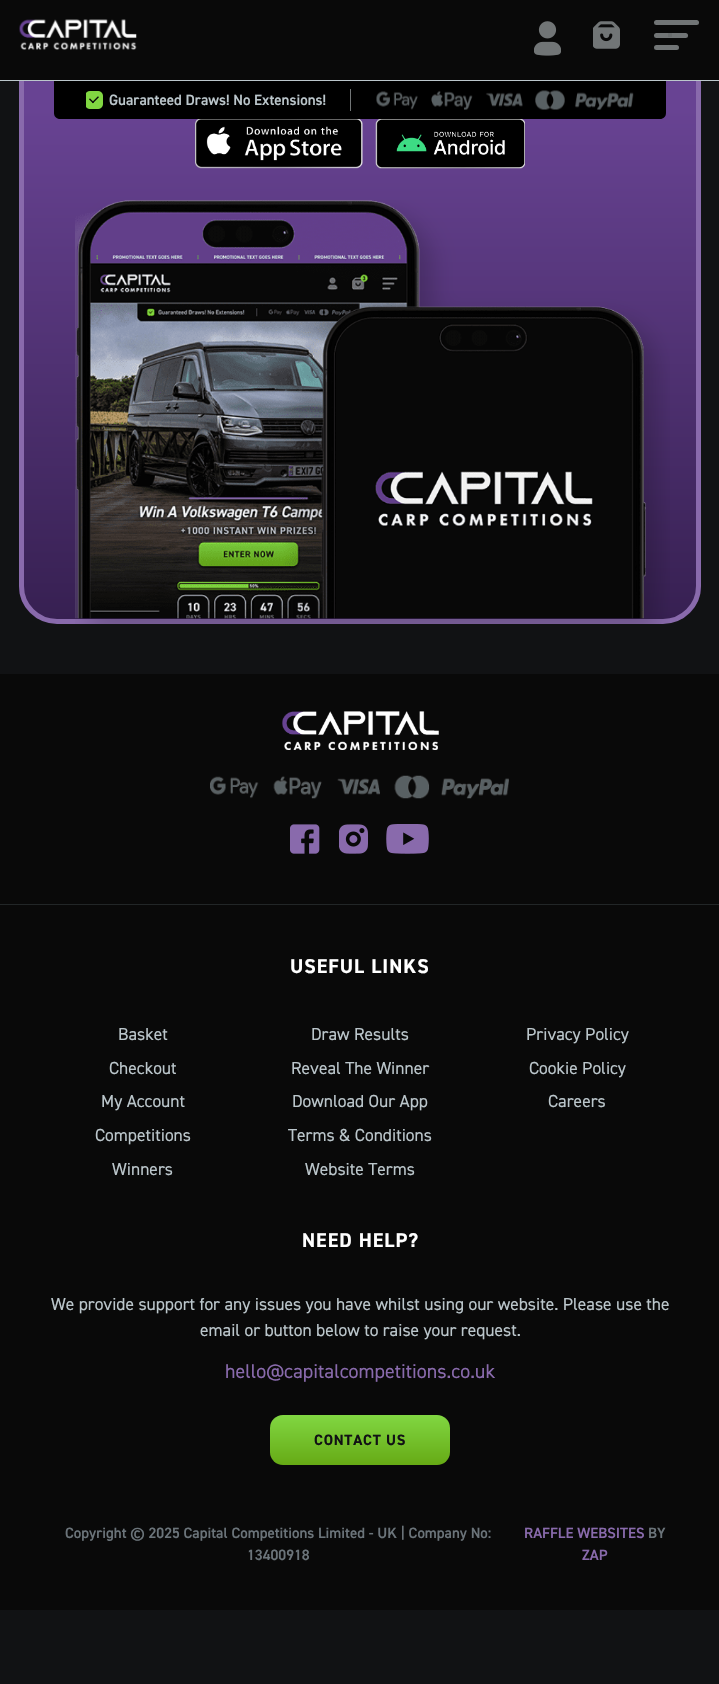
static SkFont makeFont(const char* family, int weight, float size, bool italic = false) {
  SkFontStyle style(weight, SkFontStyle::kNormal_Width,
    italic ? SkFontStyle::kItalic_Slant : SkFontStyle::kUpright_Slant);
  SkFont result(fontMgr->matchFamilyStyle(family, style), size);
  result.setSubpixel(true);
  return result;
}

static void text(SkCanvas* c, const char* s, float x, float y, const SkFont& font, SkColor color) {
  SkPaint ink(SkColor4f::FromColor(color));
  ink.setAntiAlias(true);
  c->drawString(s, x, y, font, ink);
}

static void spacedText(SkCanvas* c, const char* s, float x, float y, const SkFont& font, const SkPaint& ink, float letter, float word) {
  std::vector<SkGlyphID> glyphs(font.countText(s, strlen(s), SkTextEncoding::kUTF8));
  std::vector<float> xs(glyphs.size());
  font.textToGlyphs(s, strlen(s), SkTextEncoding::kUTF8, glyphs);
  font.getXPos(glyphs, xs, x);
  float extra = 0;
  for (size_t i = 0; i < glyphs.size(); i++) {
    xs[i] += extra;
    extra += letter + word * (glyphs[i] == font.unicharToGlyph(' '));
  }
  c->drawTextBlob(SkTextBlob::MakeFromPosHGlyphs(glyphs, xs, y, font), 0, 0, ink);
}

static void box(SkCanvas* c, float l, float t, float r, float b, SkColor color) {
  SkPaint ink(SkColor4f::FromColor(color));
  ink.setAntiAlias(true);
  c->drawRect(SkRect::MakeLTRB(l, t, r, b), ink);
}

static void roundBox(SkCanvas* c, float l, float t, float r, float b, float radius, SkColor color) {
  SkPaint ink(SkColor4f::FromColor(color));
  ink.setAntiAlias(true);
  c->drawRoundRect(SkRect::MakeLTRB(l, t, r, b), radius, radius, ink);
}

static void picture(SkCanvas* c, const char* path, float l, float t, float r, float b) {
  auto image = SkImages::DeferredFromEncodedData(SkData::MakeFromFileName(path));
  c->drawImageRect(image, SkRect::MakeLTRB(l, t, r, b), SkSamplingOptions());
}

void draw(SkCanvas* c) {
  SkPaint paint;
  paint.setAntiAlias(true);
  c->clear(0xff111214);
  c->save();
  c->clipPath(SkPathBuilder().moveTo(57, -24).lineTo(663, -24).cubicTo(684, -24, 701, -7, 701, 14).lineTo(701, 586).cubicTo(701, 607, 684, 624, 663, 624).lineTo(57, 624).cubicTo(36, 624, 19, 607, 19, 586).lineTo(19, 14).cubicTo(19, -7, 36, -24, 57, -24).close().detach(), true);
  {
    const SkColor colors[] = {0xff372052, 0xff684393};
    const float stops[] = {0, 0.8f};
    const SkPoint ends[] = {{360, 619}, {360, -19}};
    paint.setShader(SkGradientShader::MakeLinear(ends, colors, stops, 2, SkTileMode::kClamp));
    paint.setAlpha(255);
  }
  c->drawRect(SkRect::MakeLTRB(19, 81, 701, 619), paint);
  c->restore();
  paint.setStyle(SkPaint::kStroke_Style);
  paint.setStrokeWidth(5);
  paint.setShader(nullptr);
  paint.setColor(0xff896aac);
  c->drawRoundRect(SkRect::MakeLTRB(21.5f, -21.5f, 698.5f, 621.5f), 35.5f, 35.5f, paint);
  picture(c, "img_01.png", 195, 119, 363, 169);
  picture(c, "img_02.png", 375, 119, 525, 169);
  picture(c, "img_03.png", 75, 200, 670, 624);
  box(c, 0, 0, 719, 80, 0xff090909);
  box(c, 0, 80, 719, 81, 0xffbbc6cb);
  picture(c, "img_04.png", 19, 19, 137, 50);
  picture(c, "img_05.png", 534, 21, 561, 56);
  picture(c, "img_06.png", 593, 21, 620, 49);
  roundBox(c, 654, 33, 688, 38, 2.5f, 0xff717576);
  box(c, 668, 33, 672, 37, 0xff696d6e);
  roundBox(c, 654, 20, 699, 25, 2.5f, 0xff717576);
  roundBox(c, 654, 45, 679, 50, 2.5f, 0xff717576);
  paint.setStyle(SkPaint::kFill_Style);
  paint.setColor(0xff000000);
  c->drawPath(SkPathBuilder().moveTo(54, 81).lineTo(666, 81).lineTo(666, 113).cubicTo(666, 116.5f, 663.5f, 119, 660, 119).lineTo(60, 119).cubicTo(56.5f, 119, 54, 116.5f, 54, 113).close().detach(), paint);
  picture(c, "img_07.png", 86, 91, 103, 109);
  SkFont face1 = makeFont("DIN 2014", 600, 15);
  text(c, "Guaranteed Draws! No Extensions!", 109, 105, face1, 0xffbbc6cb);
  box(c, 350, 89, 351, 111, 0xff717576);
  picture(c, "img_08.png", 376, 90, 634, 110);
  box(c, 0, 674, 719, 1610, 0xff090909);
  box(c, 0, 904, 719, 905, 0xff222627);
  picture(c, "img_09.png", 282, 711, 439, 750);
  picture(c, "img_10.png", 210, 775, 509, 799);
  picture(c, "img_11.png", 290, 824, 320, 854);
  picture(c, "img_12.png", 339, 824, 368, 854);
  picture(c, "img_13.png", 386, 824, 429, 854);
  SkFont face2 = makeFont("DIN 2014", 700, 20);
  paint.setColor(0xffffffff);
  spacedText(c, "USEFUL LINKS", 290, 973, face2, paint, 1, 0);
  SkFont face3 = makeFont("DIN 2014", 400, 17.5f);
  text(c, "Basket", 118, 1040, face3, 0xffbbc6cb);
  text(c, "Draw Results", 311, 1040, face3, 0xffbbc6cb);
  text(c, "Privacy Policy", 526, 1040, face3, 0xffbbc6cb);
  text(c, "Checkout", 109, 1074, face3, 0xffbbc6cb);
  text(c, "Reveal The Winner", 291, 1074, face3, 0xffbbc6cb);
  text(c, "Cookie Policy", 529, 1074, face3, 0xffbbc6cb);
  text(c, "My Account", 101, 1107, face3, 0xffbbc6cb);
  text(c, "Download Our App", 292, 1107, face3, 0xffbbc6cb);
  text(c, "Careers", 548, 1107, face3, 0xffbbc6cb);
  text(c, "Competitions", 95, 1141, face3, 0xffbbc6cb);
  text(c, "Terms & Conditions", 288, 1141, face3, 0xffbbc6cb);
  text(c, "Winners", 112, 1175, face3, 0xffbbc6cb);
  text(c, "Website Terms", 305, 1175, face3, 0xffbbc6cb);
  spacedText(c, "NEED HELP?", 302, 1247, face2, paint, 1, 0);
  text(c, "We provide support for any issues you have whilst using our website. Please use the", 51, 1310, face3, 0xffbbc6cb);
  text(c, "email or button below to raise your request.", 200, 1336, face3, 0xffbbc6cb);
  SkFont face4 = makeFont("DIN 2014", 400, 20);
  text(c, "hello@capitalcompetitions.co.uk", 225, 1378, face4, 0xff896aac);
  {
    const SkColor colors[] = {0xff81d742, 0xff66aa15};
    const float stops[] = {0, 1};
    const SkPoint ends[] = {{360, 1415}, {360, 1465}};
    paint.setShader(SkGradientShader::MakeLinear(ends, colors, stops, 2, SkTileMode::kClamp));
    paint.setAlpha(255);
  }
  c->drawRoundRect(SkRect::MakeLTRB(270, 1415, 450, 1465), 13, 13, paint);
  SkFont face5 = makeFont("DIN 2014", 700, 15);
  paint.setShader(nullptr);
  paint.setColor(0xff111214);
  spacedText(c, "CONTACT US", 314, 1445, face5, paint, 0.75f, 0);
  text(c, "Copyright © 2025 Capital Competitions Limited - UK | Company No:", 65, 1538, face1, 0xff6b747a);
  text(c, "13400918", 247, 1560, face1, 0xff6b747a);
  text(c, "RAFFLE WEBSITES", 524, 1538, face1, 0xff896aac);
  text(c, "BY", 648, 1538, face1, 0xff6b747a);
  text(c, "ZAP", 582, 1560, face1, 0xff896aac);
}
